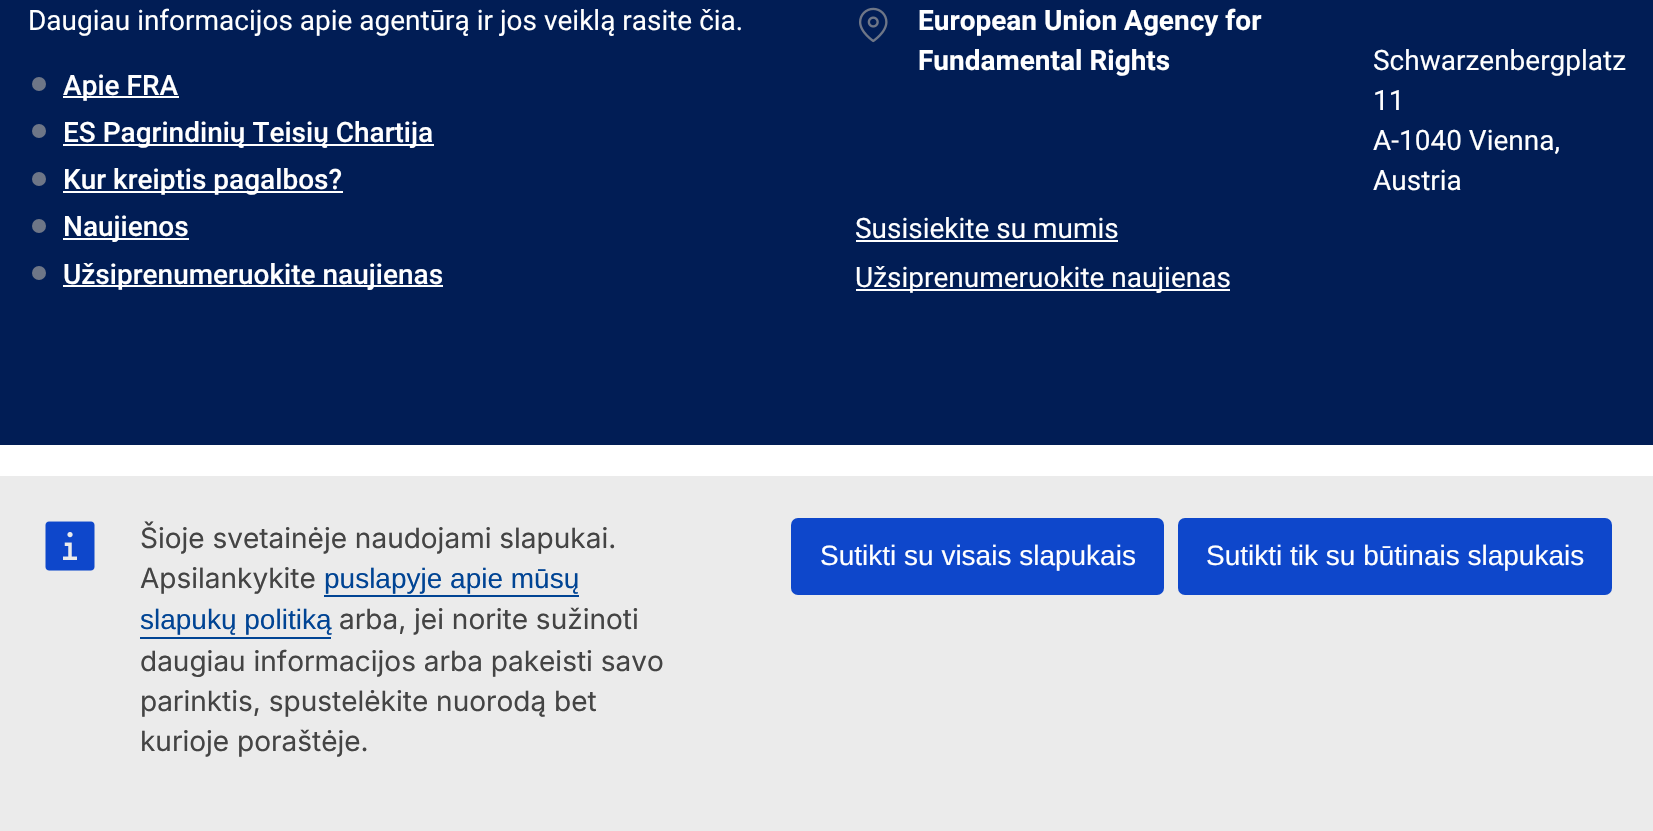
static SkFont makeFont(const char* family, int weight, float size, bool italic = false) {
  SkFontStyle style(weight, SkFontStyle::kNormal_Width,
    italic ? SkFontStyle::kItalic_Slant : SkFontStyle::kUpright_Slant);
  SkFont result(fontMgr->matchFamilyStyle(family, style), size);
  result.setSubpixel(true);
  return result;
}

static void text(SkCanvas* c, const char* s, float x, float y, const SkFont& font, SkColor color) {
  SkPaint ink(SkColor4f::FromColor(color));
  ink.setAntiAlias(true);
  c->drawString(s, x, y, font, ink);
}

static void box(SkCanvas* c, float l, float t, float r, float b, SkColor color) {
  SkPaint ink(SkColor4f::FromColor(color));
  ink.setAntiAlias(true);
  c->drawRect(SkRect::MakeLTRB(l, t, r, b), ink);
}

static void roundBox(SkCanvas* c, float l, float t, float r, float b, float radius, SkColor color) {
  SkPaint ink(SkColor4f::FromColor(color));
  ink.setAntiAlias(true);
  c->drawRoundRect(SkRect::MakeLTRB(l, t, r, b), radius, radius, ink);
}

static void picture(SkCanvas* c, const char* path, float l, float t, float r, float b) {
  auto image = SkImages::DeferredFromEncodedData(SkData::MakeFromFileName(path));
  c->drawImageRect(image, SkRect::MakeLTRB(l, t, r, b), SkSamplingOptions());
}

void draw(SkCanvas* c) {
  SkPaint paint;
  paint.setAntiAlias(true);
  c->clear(0xff011d55);
  SkFont face1 = makeFont("Roboto", 400, 28);
  text(c, "Daugiau informacijos apie agentūrą ir jos veiklą rasite čia.", 28, 30, face1, 0xffffffff);
  paint.setColor(0xff6e7687);
  c->drawCircle(39, 84, 7, paint);
  box(c, 63, 96, 179, 98, 0xffffffff);
  SkFont face2 = makeFont("Roboto", 500, 28);
  text(c, "Apie FRA", 63, 95, face2, 0xffffffff);
  c->drawCircle(39, 131, 7, paint);
  box(c, 63, 144, 434, 146, 0xffffffff);
  text(c, "ES Pagrindinių Teisių Chartija", 63, 142, face2, 0xffffffff);
  c->drawCircle(39, 179, 7, paint);
  box(c, 63, 191, 343, 193, 0xffffffff);
  text(c, "Kur kreiptis pagalbos?", 63, 189, face2, 0xffffffff);
  c->drawCircle(39, 226, 7, paint);
  box(c, 63, 238, 189, 240, 0xffffffff);
  text(c, "Naujienos", 63, 236, face2, 0xffffffff);
  c->drawCircle(39, 273, 7, paint);
  box(c, 63, 285, 443, 287, 0xffffffff);
  text(c, "Užsiprenumeruokite naujienas", 63, 284, face2, 0xffffffff);
  picture(c, "img_01.png", 859, 7, 888, 43);
  SkFont face3 = makeFont("Roboto", 700, 28);
  text(c, "European Union Agency for", 918, 30, face3, 0xffffffff);
  text(c, "Fundamental Rights", 918, 70, face3, 0xffffffff);
  text(c, "Schwarzenbergplatz", 1373, 70, face1, 0xffffffff);
  text(c, "11", 1373, 110, face1, 0xffffffff);
  text(c, "A-1040 Vienna,", 1373, 150, face1, 0xffffffff);
  text(c, "Austria", 1373, 190, face1, 0xffffffff);
  text(c, "Susisiekite su mumis", 855, 238, face1, 0xffffffff);
  box(c, 856, 240, 1118, 242, 0xffffffff);
  box(c, 856, 289, 1230, 291, 0xffffffff);
  text(c, "Užsiprenumeruokite naujienas", 855, 287, face1, 0xffffffff);
  box(c, 0, 445, 1653, 476, 0xffffffff);
  box(c, 0, 476, 1653, 831, 0xffebebeb);
  picture(c, "img_02.png", 45, 521, 95, 571);
  SkFont face4 = makeFont("Inter", 400, 28);
  text(c, "Šioje svetainėje naudojami slapukai.", 140, 548, face4, 0xff444444);
  text(c, "Apsilankykite", 140, 588, face4, 0xff444444);
  SkFont face5 = makeFont("Liberation Sans", 400, 28);
  text(c, "puslapyje apie mūsų", 324, 588, face5, 0xff004494);
  box(c, 324, 595, 579, 597, 0xff004494);
  text(c, "slapukų politiką", 140, 629, face5, 0xff004494);
  box(c, 140, 637, 331, 639, 0xff004494);
  text(c, "arba, jei norite sužinoti", 339, 629, face4, 0xff444444);
  text(c, "daugiau informacijos arba pakeisti savo", 140, 671, face4, 0xff444444);
  text(c, "parinktis, spustelėkite nuorodą bet", 140, 711, face4, 0xff444444);
  text(c, "kurioje poraštėje.", 140, 751, face4, 0xff444444);
  roundBox(c, 791, 518, 1164, 595, 7, 0xff0e47cb);
  text(c, "Sutikti su visais slapukais", 820, 565, face5, 0xffffffff);
  roundBox(c, 1178, 518, 1612, 595, 7, 0xff0e47cb);
  text(c, "Sutikti tik su būtinais slapukais", 1206, 565, face5, 0xffffffff);
}
